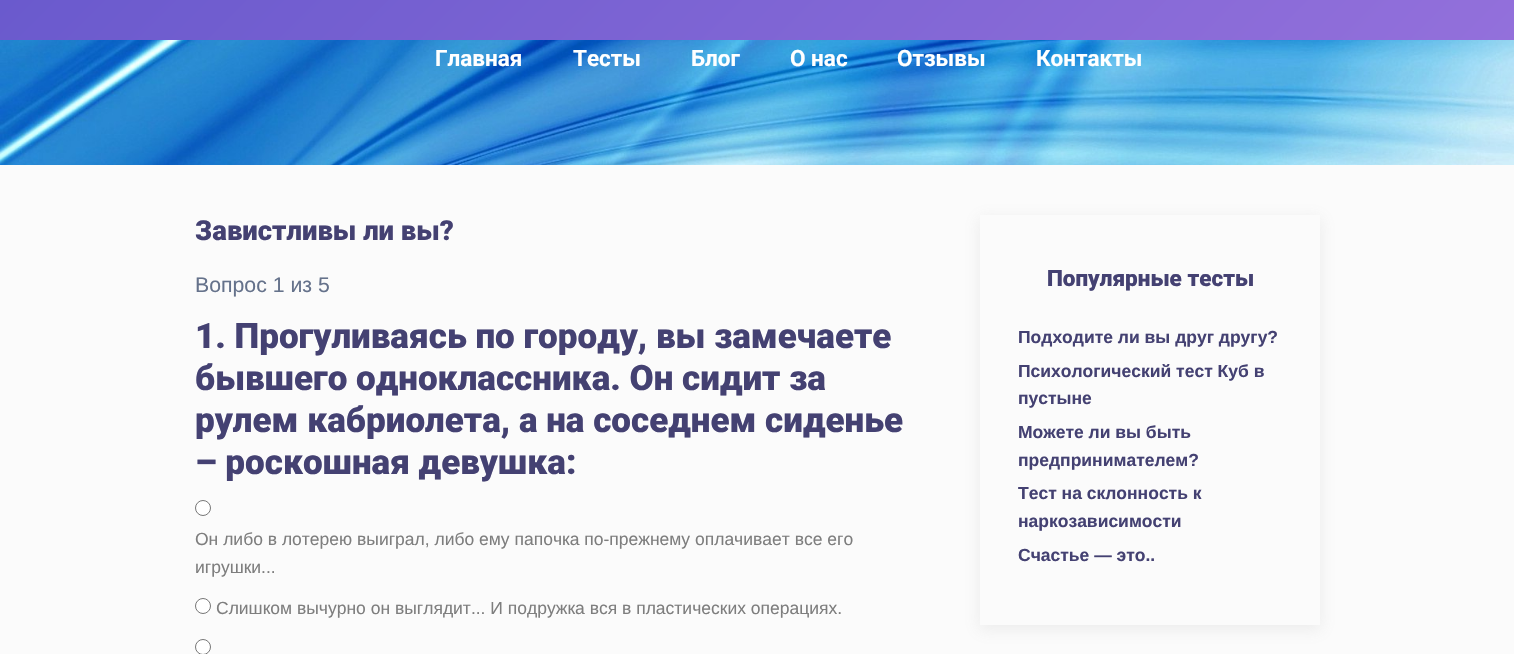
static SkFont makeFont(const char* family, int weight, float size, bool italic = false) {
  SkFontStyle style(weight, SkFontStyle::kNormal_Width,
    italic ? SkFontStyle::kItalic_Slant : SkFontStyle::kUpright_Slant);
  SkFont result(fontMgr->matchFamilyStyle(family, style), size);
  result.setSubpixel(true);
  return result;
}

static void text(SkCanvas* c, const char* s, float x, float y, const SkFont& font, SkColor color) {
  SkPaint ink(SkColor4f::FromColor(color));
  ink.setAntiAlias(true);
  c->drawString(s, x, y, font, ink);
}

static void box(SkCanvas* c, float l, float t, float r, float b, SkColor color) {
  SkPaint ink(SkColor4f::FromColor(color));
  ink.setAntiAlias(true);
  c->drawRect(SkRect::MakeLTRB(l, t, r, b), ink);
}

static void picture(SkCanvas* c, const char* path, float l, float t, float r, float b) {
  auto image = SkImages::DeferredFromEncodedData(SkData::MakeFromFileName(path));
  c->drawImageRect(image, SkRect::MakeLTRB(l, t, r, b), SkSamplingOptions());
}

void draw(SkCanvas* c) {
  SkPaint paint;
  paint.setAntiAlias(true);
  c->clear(0xffffffff);
  {
    const SkColor colors[] = {0xff6a5acd, 0xff9370db};
    const float stops[] = {0, 1};
    const SkPoint ends[] = {{369, -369}, {1146, 409}};
    paint.setShader(SkGradientShader::MakeLinear(ends, colors, stops, 2, SkTileMode::kClamp));
    paint.setAlpha(255);
  }
  c->drawRect(SkRect::MakeLTRB(0, 0, 1514, 40), paint);
  picture(c, "img_01.png", 0, 40, 1514, 165);
  SkFont face1 = makeFont("Roboto", 700, 22.5f);
  text(c, "Главная", 435, 66, face1, 0xffffffff);
  text(c, "Тесты", 573, 66, face1, 0xffffffff);
  text(c, "Блог", 691, 66, face1, 0xffffffff);
  text(c, "О нас", 790, 66, face1, 0xffffffff);
  text(c, "Отзывы", 897, 66, face1, 0xffffffff);
  text(c, "Контакты", 1036, 66, face1, 0xffffffff);
  box(c, 0, 165, 1514, 654, 0xfffbfbfb);
  SkFont face2 = makeFont("Roboto", 900, 27.5f);
  text(c, "Завистливы ли вы?", 195, 240, face2, 0xff444172);
  SkFont face3 = makeFont("Liberation Sans", 400, 21.25f);
  text(c, "Вопрос 1 из 5", 195, 292, face3, 0xff65728b);
  SkFont face4 = makeFont("Roboto", 900, 35);
  text(c, "1. Прогуливаясь по городу, вы замечаете", 195, 348, face4, 0xff444172);
  text(c, "бывшего одноклассника. Он сидит за", 195, 390, face4, 0xff444172);
  text(c, "рулем кабриолета, а на соседнем сиденье", 195, 432, face4, 0xff444172);
  text(c, "– роскошная девушка:", 195, 474, face4, 0xff444172);
  paint.setShader(nullptr);
  paint.setColor(0xffffffff);
  c->drawCircle(203, 508, 7.5f, paint);
  paint.setStyle(SkPaint::kStroke_Style);
  paint.setStrokeWidth(1);
  paint.setColor(0xff767676);
  c->drawCircle(203, 508, 7.5f, paint);
  SkFont face5 = makeFont("Liberation Sans", 400, 17.5f);
  text(c, "Он либо в лотерею выиграл, либо ему папочка по-прежнему оплачивает все его", 195, 545, face5, 0xff7e7e7e);
  text(c, "игрушки...", 195, 573, face5, 0xff7e7e7e);
  paint.setStyle(SkPaint::kFill_Style);
  paint.setColor(0xffffffff);
  c->drawCircle(203, 606, 7.5f, paint);
  paint.setStyle(SkPaint::kStroke_Style);
  paint.setColor(0xff767676);
  c->drawCircle(203, 606, 7.5f, paint);
  text(c, "Слишком вычурно он выглядит... И подружка вся в пластических операциях.", 216, 614, face5, 0xff7e7e7e);
  paint.setStyle(SkPaint::kFill_Style);
  paint.setColor(0xffffffff);
  c->drawCircle(203, 647, 7.5f, paint);
  paint.setStyle(SkPaint::kStroke_Style);
  paint.setColor(0xff767676);
  c->drawCircle(203, 647, 7.5f, paint);
  c->save();
  c->clipPath(SkPathBuilder(SkPathFillType::kEvenOdd).moveTo(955, 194).lineTo(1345, 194).lineTo(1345, 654).lineTo(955, 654).close().moveTo(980, 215).lineTo(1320, 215).lineTo(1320, 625).lineTo(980, 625).close().detach(), true);
  paint.setStyle(SkPaint::kFill_Style);
  paint.setColor(0x218a8a8a);
  paint.setMaskFilter(SkMaskFilter::MakeBlur(kNormal_SkBlurStyle, 7.5f));
  c->drawRect(SkRect::MakeLTRB(979, 218, 1321, 630), paint);
  paint.setMaskFilter(nullptr);
  c->restore();
  SkFont face6 = makeFont("Roboto", 900, 22.5f);
  text(c, "Популярные тесты", 1047, 286, face6, 0xff444172);
  SkFont face7 = makeFont("Liberation Sans", 700, 17.5f);
  text(c, "Подходите ли вы друг другу?", 1018, 343, face7, 0xff444172);
  text(c, "Психологический тест Куб в", 1018, 377, face7, 0xff444172);
  text(c, "пустыне", 1018, 404, face7, 0xff444172);
  text(c, "Можете ли вы быть", 1018, 438, face7, 0xff444172);
  text(c, "предпринимателем?", 1018, 466, face7, 0xff444172);
  text(c, "Тест на склонность к", 1018, 499, face7, 0xff444172);
  text(c, "наркозависимости", 1018, 527, face7, 0xff444172);
  text(c, "Счастье — это..", 1018, 561, face7, 0xff444172);
}
